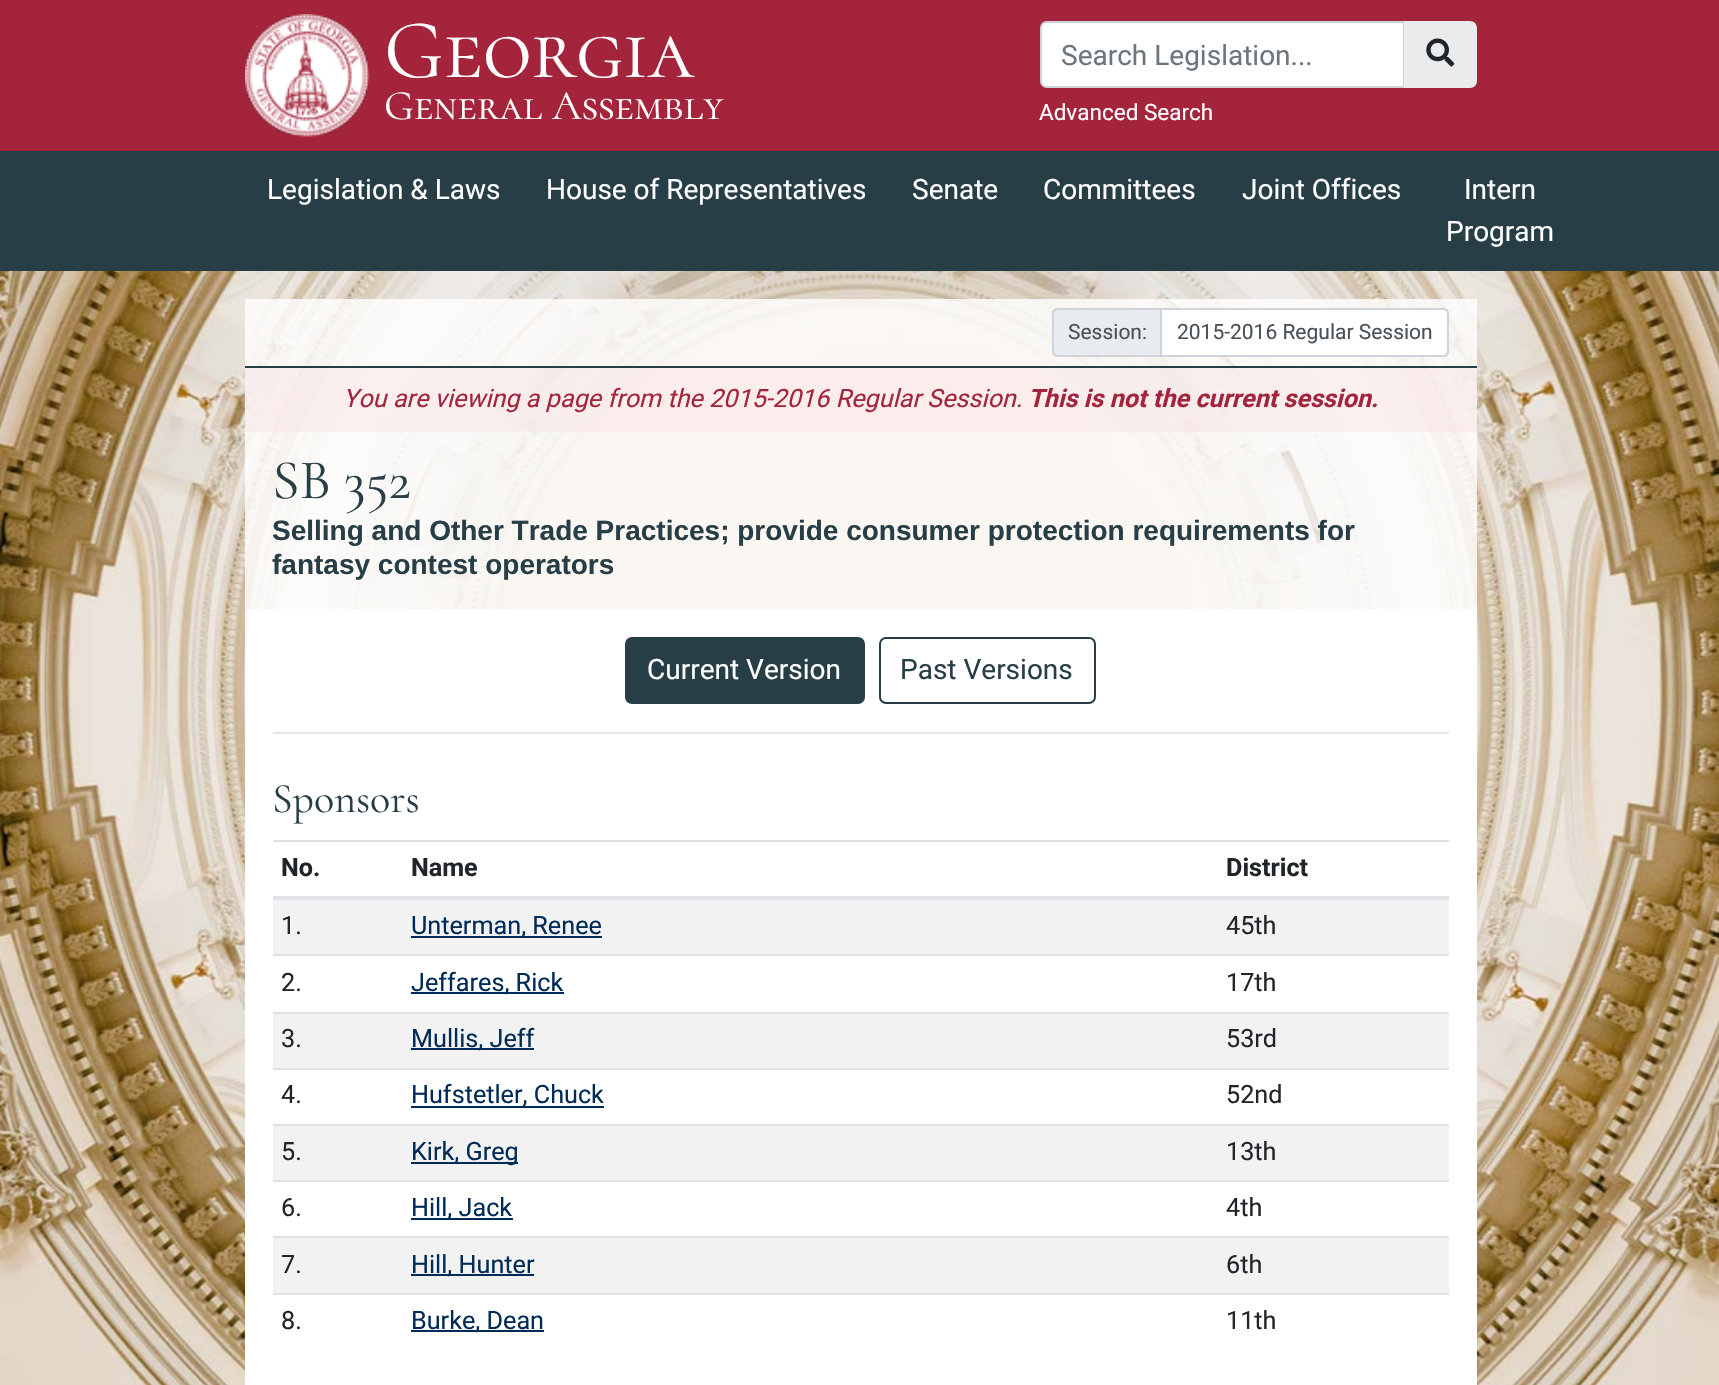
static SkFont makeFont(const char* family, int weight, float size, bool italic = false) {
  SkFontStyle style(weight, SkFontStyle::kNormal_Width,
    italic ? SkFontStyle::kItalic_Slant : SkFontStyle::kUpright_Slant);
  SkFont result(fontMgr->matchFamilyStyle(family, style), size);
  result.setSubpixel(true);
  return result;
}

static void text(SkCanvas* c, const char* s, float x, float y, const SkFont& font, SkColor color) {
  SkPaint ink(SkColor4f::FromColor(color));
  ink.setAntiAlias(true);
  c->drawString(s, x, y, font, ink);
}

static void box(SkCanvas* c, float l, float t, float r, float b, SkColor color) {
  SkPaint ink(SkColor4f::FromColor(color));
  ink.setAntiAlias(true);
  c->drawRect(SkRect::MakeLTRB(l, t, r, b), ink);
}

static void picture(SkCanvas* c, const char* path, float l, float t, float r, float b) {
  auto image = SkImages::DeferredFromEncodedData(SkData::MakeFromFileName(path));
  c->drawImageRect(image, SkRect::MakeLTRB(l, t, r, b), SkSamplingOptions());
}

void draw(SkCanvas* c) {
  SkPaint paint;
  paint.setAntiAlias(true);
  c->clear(0xffffffff);
  picture(c, "img_01.png", 0, 271, 1719, 1385);
  box(c, 0, 0, 1719, 151, 0xffa4243b);
  picture(c, "img_02.png", 245, 14, 370, 137);
  SkFont face1 = makeFont("Cormorant SC", 400, 84);
  text(c, "Georgia", 384, 77, face1, 0xffffffff);
  SkFont face2 = makeFont("Cormorant SC", 400, 42);
  text(c, "General Assembly", 384, 119, face2, 0xffffffff);
  paint.setColor(0xffffffff);
  c->drawPath(SkPathBuilder().moveTo(1047, 22).lineTo(1404, 22).lineTo(1404, 87).lineTo(1047, 87).cubicTo(1043.5f, 87, 1041, 84.5f, 1041, 81).lineTo(1041, 28).cubicTo(1041, 24.5f, 1043.5f, 22, 1047, 22).close().detach(), paint);
  paint.setStyle(SkPaint::kStroke_Style);
  paint.setStrokeWidth(2);
  paint.setColor(0xffced4da);
  c->drawPath(SkPathBuilder().moveTo(1047, 22).lineTo(1404, 22).lineTo(1404, 87).lineTo(1047, 87).cubicTo(1043.5f, 87, 1041, 84.5f, 1041, 81).lineTo(1041, 28).cubicTo(1041, 24.5f, 1043.5f, 22, 1047, 22).close().detach(), paint);
  SkFont face3 = makeFont("Roboto", 400, 28);
  text(c, "Search Legislation...", 1061, 65, face3, 0xff6c757d);
  paint.setStyle(SkPaint::kFill_Style);
  paint.setColor(0xffe9ebec);
  c->drawPath(SkPathBuilder().moveTo(1405, 22).lineTo(1470, 22).cubicTo(1473.5f, 22, 1476, 24.5f, 1476, 28).lineTo(1476, 81).cubicTo(1476, 84.5f, 1473.5f, 87, 1470, 87).lineTo(1405, 87).close().detach(), paint);
  paint.setStyle(SkPaint::kStroke_Style);
  c->drawPath(SkPathBuilder().moveTo(1405, 22).lineTo(1470, 22).cubicTo(1473.5f, 22, 1476, 24.5f, 1476, 28).lineTo(1476, 81).cubicTo(1476, 84.5f, 1473.5f, 87, 1470, 87).lineTo(1405, 87).close().detach(), paint);
  picture(c, "img_03.png", 1426, 38, 1455, 67);
  SkFont face4 = makeFont("Roboto", 400, 22.5f);
  text(c, "Advanced Search", 1039, 120, face4, 0xffffffff);
  box(c, 0, 151, 1719, 271, 0xff273e47);
  text(c, "Legislation & Laws", 267, 199, face3, 0xffffffff);
  text(c, "House of Representatives", 546, 199, face3, 0xffffffff);
  text(c, "Senate", 912, 199, face3, 0xffffffff);
  text(c, "Committees", 1043, 199, face3, 0xffffffff);
  text(c, "Joint Offices", 1242, 199, face3, 0xffffffff);
  text(c, "Intern", 1464, 199, face3, 0xffffffff);
  text(c, "Program", 1446, 241, face3, 0xffffffff);
  box(c, 245, 299, 1477, 366, 0xccffffff);
  box(c, 245, 366, 1477, 368, 0xff273e47);
  paint.setStyle(SkPaint::kFill_Style);
  paint.setColor(0xffe9ecef);
  c->drawPath(SkPathBuilder().moveTo(1057, 309).lineTo(1161, 309).lineTo(1161, 356).lineTo(1057, 356).cubicTo(1055, 356, 1053, 354, 1053, 352).lineTo(1053, 313).cubicTo(1053, 311, 1055, 309, 1057, 309).close().detach(), paint);
  paint.setStyle(SkPaint::kStroke_Style);
  paint.setColor(0xffced4da);
  c->drawPath(SkPathBuilder().moveTo(1057, 309).lineTo(1161, 309).lineTo(1161, 356).lineTo(1057, 356).cubicTo(1055, 356, 1053, 354, 1053, 352).lineTo(1053, 313).cubicTo(1053, 311, 1055, 309, 1057, 309).close().detach(), paint);
  SkFont face5 = makeFont("Roboto", 400, 21);
  text(c, "Session:", 1068, 339, face5, 0xff495057);
  paint.setStyle(SkPaint::kFill_Style);
  paint.setColor(0xffffffff);
  c->drawPath(SkPathBuilder().moveTo(1161, 309).lineTo(1444, 309).cubicTo(1446, 309, 1448, 311, 1448, 313).lineTo(1448, 352).cubicTo(1448, 354, 1446, 356, 1444, 356).lineTo(1161, 356).close().detach(), paint);
  paint.setStyle(SkPaint::kStroke_Style);
  paint.setColor(0xffced4da);
  c->drawPath(SkPathBuilder().moveTo(1161, 309).lineTo(1444, 309).cubicTo(1446, 309, 1448, 311, 1448, 313).lineTo(1448, 352).cubicTo(1448, 354, 1446, 356, 1444, 356).lineTo(1161, 356).close().detach(), paint);
  text(c, "2015-2016 Regular Session", 1177, 339, face5, 0xff495057);
  box(c, 245, 368, 1477, 432, 0xe6fceff1);
  SkFont face6 = makeFont("Roboto", 400, 25.2f, true);
  text(c, "You are viewing a page from the 2015-2016 Regular Session.", 343, 407, face6, 0xffa4243b);
  SkFont face7 = makeFont("Roboto", 700, 25.2f, true);
  text(c, "This is not the current session.", 1028, 407, face7, 0xffa4243b);
  box(c, 245, 432, 1477, 609, 0xccffffff);
  SkFont face8 = makeFont("Cormorant", 300, 56);
  text(c, "SB 352", 272, 498, face8, 0xff273e47);
  SkFont face9 = makeFont("Liberation Sans", 700, 28);
  text(c, "Selling and Other Trade Practices; provide consumer protection requirements for", 272, 540, face9, 0xff273e47);
  text(c, "fantasy contest operators", 272, 574, face9, 0xff273e47);
  box(c, 245, 609, 1477, 1385, 0xffffffff);
  paint.setStyle(SkPaint::kFill_Style);
  paint.setColor(0xff273e47);
  c->drawRoundRect(SkRect::MakeLTRB(626, 638, 864, 703), 6, 6, paint);
  paint.setStyle(SkPaint::kStroke_Style);
  c->drawRoundRect(SkRect::MakeLTRB(626, 638, 864, 703), 6, 6, paint);
  text(c, "Current Version", 647, 679, face3, 0xffffffff);
  c->drawRoundRect(SkRect::MakeLTRB(880, 638, 1095, 703), 6, 6, paint);
  text(c, "Past Versions", 900, 679, face3, 0xff273e47);
  box(c, 273, 732, 1449, 734, 0xffe6e6e6);
  SkFont face10 = makeFont("Cormorant", 300, 42);
  text(c, "Sponsors", 272, 812, face10, 0xff273e47);
  paint.setStyle(SkPaint::kFill_Style);
  {
    const SkColor colors[] = {0xffcccccc, 0xffffffff};
    const float stops[] = {0, 1};
    SkMatrix m = SkMatrix::Translate(1449, 1109).preScale(25, 269);
    paint.setShader(SkGradientShader::MakeRadial({0, 0}, 1, colors, stops, 2, SkTileMode::kClamp, 0, &m));
    paint.setAlpha(255);
  }
  c->drawRect(SkRect::MakeLTRB(1425, 1000, 1428, 1218), paint);
  {
    const SkColor colors[] = {0xffcccccc, 0xffffffff};
    const float stops[] = {0, 1};
    SkMatrix m = SkMatrix::Translate(273, 1109).preScale(25, 269);
    paint.setShader(SkGradientShader::MakeRadial({0, 0}, 1, colors, stops, 2, SkTileMode::kClamp, 0, &m));
    paint.setAlpha(255);
  }
  c->drawRect(SkRect::MakeLTRB(294, 1000, 297, 1218), paint);
  {
    const SkColor colors[] = {0x00ffffff, 0xffffffff};
    const float stops[] = {0, 0.7f};
    const SkPoint ends[] = {{1379, 1109}, {1449, 1109}};
    paint.setShader(SkGradientShader::MakeLinear(ends, colors, stops, 2, SkTileMode::kClamp));
    paint.setAlpha(255);
  }
  c->drawRect(SkRect::MakeLTRB(1425, 1000, 1428, 1218), paint);
  {
    const SkColor colors[] = {0xffffffff, 0x00ffffff};
    const float stops[] = {0.3f, 1};
    const SkPoint ends[] = {{273, 1109}, {343, 1109}};
    paint.setShader(SkGradientShader::MakeLinear(ends, colors, stops, 2, SkTileMode::kClamp));
    paint.setAlpha(255);
  }
  c->drawRect(SkRect::MakeLTRB(294, 1000, 297, 1218), paint);
  SkFont face11 = makeFont("Roboto", 700, 25.2f);
  text(c, "No.", 281, 876, face11, 0xff212529);
  text(c, "Name", 411, 876, face11, 0xff212529);
  box(c, 273, 840, 1449, 842, 0xffdee2e6);
  box(c, 273, 896, 1449, 900, 0xffdee2e6);
  text(c, "District", 1226, 876, face11, 0xff212529);
  box(c, 273, 900, 1449, 954, 0xfff2f2f2);
  SkFont face12 = makeFont("Roboto", 400, 25.2f);
  text(c, "1.", 281, 934, face12, 0xff212529);
  box(c, 411, 936, 602, 938, 0xff002a57);
  text(c, "Unterman, Renee", 411, 934, face12, 0xff002a57);
  text(c, "45th", 1226, 934, face12, 0xff212529);
  text(c, "2.", 281, 991, face12, 0xff212529);
  box(c, 411, 992, 564, 994, 0xff002a57);
  text(c, "Jeffares, Rick", 411, 991, face12, 0xff002a57);
  box(c, 273, 954, 1449, 956, 0xffdee2e6);
  text(c, "17th", 1226, 991, face12, 0xff212529);
  box(c, 273, 1014, 1449, 1068, 0xfff2f2f2);
  text(c, "3.", 281, 1047, face12, 0xff212529);
  box(c, 411, 1048, 534, 1050, 0xff002a57);
  text(c, "Mullis, Jeff", 411, 1047, face12, 0xff002a57);
  box(c, 273, 1012, 1449, 1014, 0xffdee2e6);
  text(c, "53rd", 1226, 1047, face12, 0xff212529);
  text(c, "4.", 281, 1103, face12, 0xff212529);
  box(c, 411, 1106, 604, 1108, 0xff002a57);
  text(c, "Hufstetler, Chuck", 411, 1103, face12, 0xff002a57);
  box(c, 273, 1068, 1449, 1070, 0xffdee2e6);
  text(c, "52nd", 1226, 1103, face12, 0xff212529);
  box(c, 273, 1126, 1449, 1180, 0xfff2f2f2);
  text(c, "5.", 281, 1160, face12, 0xff212529);
  box(c, 411, 1162, 518, 1164, 0xff002a57);
  text(c, "Kirk, Greg", 411, 1160, face12, 0xff002a57);
  box(c, 273, 1124, 1449, 1126, 0xffdee2e6);
  text(c, "13th", 1226, 1160, face12, 0xff212529);
  text(c, "6.", 281, 1216, face12, 0xff212529);
  box(c, 411, 1218, 513, 1220, 0xff002a57);
  text(c, "Hill, Jack", 411, 1216, face12, 0xff002a57);
  box(c, 273, 1180, 1449, 1182, 0xffdee2e6);
  text(c, "4th", 1226, 1216, face12, 0xff212529);
  box(c, 273, 1238, 1449, 1293, 0xfff2f2f2);
  text(c, "7.", 281, 1273, face12, 0xff212529);
  box(c, 411, 1274, 534, 1276, 0xff002a57);
  text(c, "Hill, Hunter", 411, 1273, face12, 0xff002a57);
  box(c, 273, 1236, 1449, 1238, 0xffdee2e6);
  text(c, "6th", 1226, 1273, face12, 0xff212529);
  text(c, "8.", 281, 1329, face12, 0xff212529);
  box(c, 411, 1330, 544, 1332, 0xff002a57);
  text(c, "Burke, Dean", 411, 1329, face12, 0xff002a57);
  box(c, 273, 1293, 1449, 1295, 0xffdee2e6);
  text(c, "11th", 1226, 1329, face12, 0xff212529);
}
